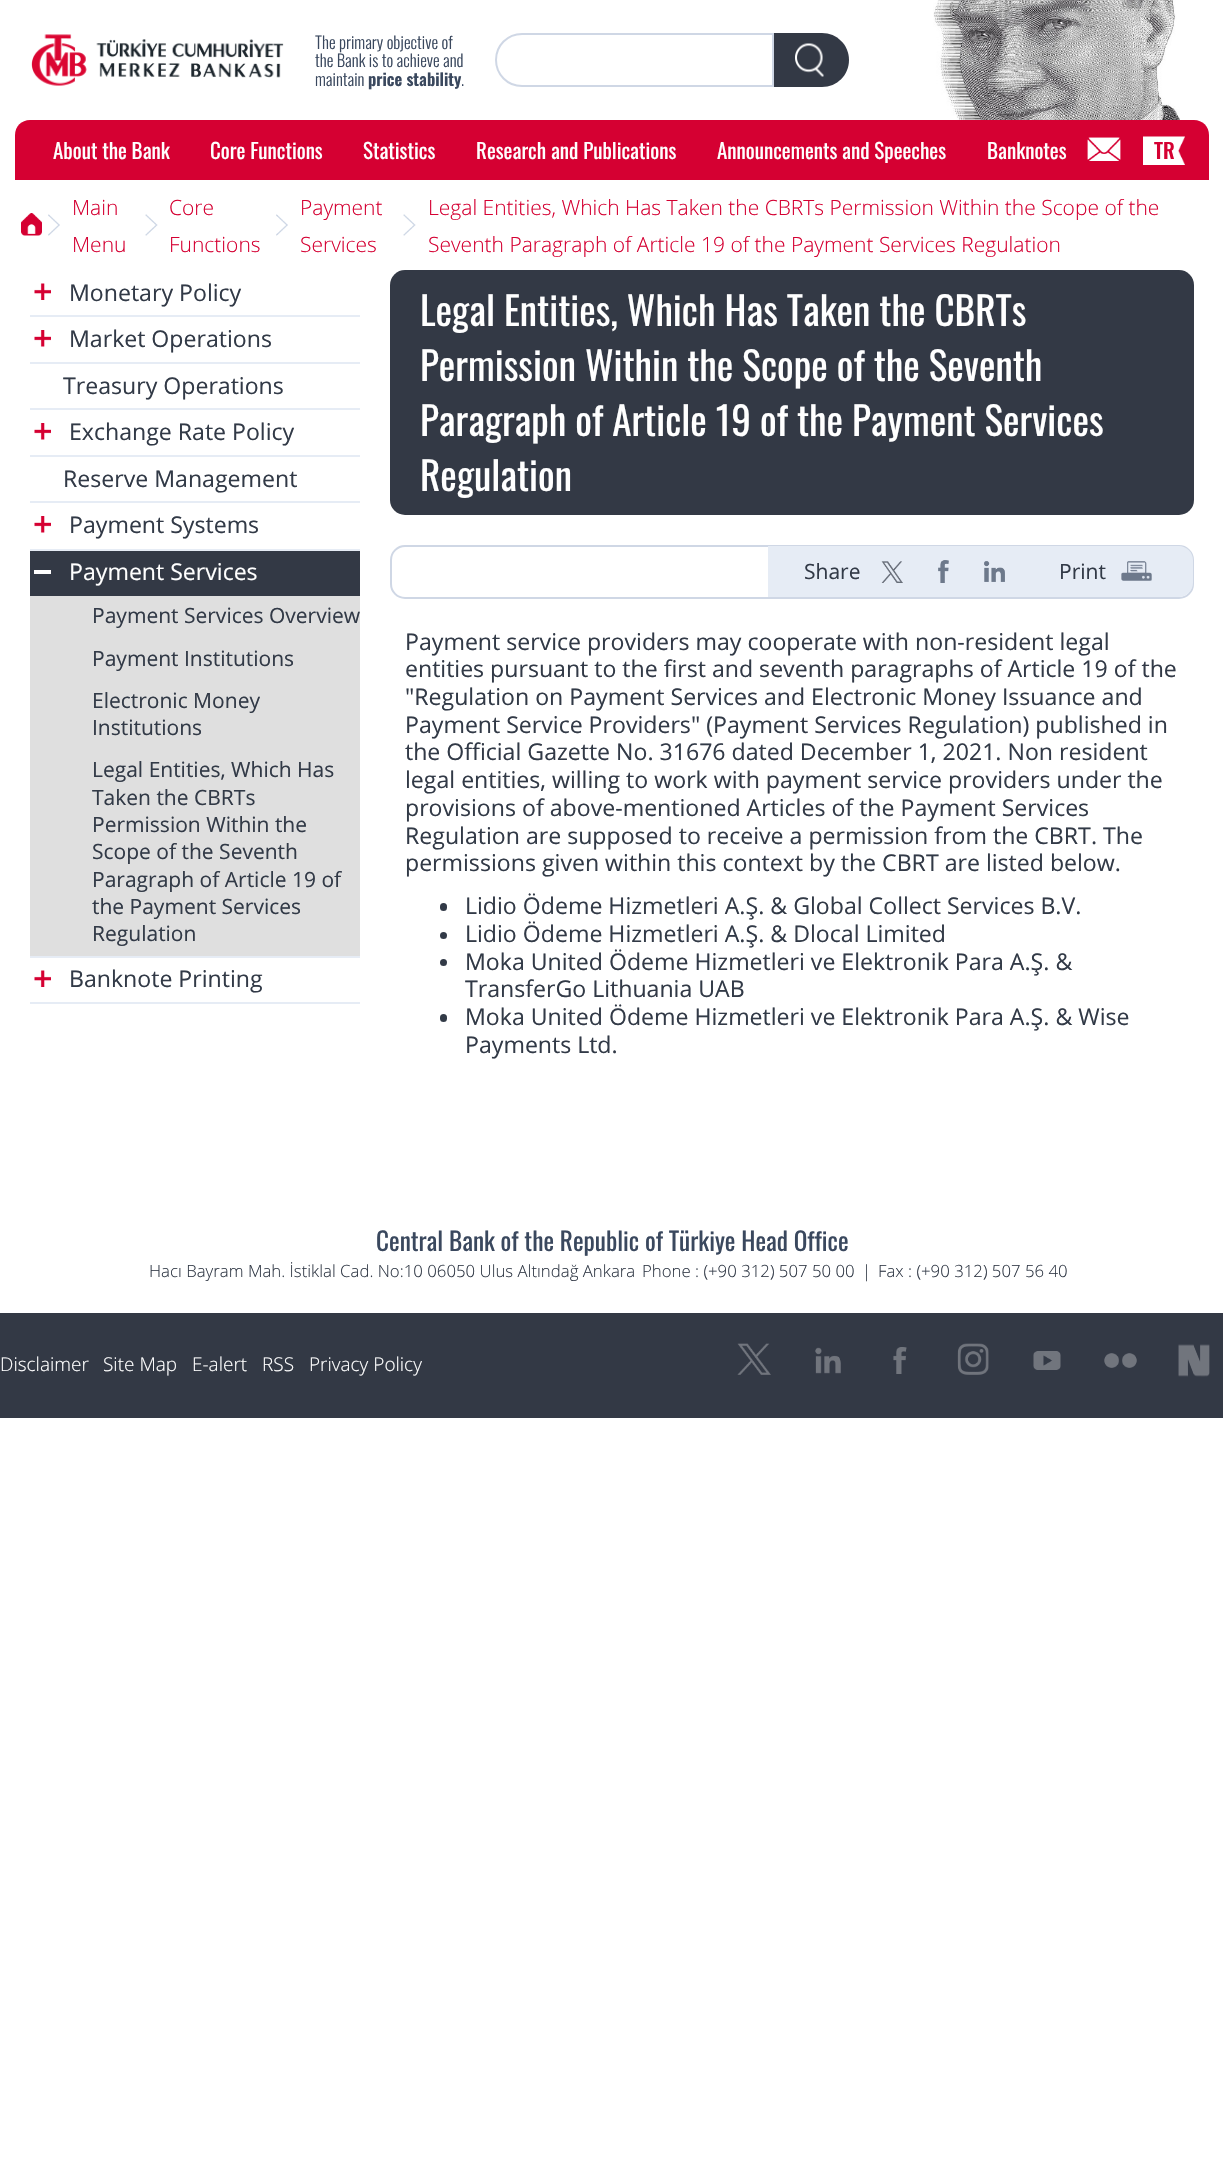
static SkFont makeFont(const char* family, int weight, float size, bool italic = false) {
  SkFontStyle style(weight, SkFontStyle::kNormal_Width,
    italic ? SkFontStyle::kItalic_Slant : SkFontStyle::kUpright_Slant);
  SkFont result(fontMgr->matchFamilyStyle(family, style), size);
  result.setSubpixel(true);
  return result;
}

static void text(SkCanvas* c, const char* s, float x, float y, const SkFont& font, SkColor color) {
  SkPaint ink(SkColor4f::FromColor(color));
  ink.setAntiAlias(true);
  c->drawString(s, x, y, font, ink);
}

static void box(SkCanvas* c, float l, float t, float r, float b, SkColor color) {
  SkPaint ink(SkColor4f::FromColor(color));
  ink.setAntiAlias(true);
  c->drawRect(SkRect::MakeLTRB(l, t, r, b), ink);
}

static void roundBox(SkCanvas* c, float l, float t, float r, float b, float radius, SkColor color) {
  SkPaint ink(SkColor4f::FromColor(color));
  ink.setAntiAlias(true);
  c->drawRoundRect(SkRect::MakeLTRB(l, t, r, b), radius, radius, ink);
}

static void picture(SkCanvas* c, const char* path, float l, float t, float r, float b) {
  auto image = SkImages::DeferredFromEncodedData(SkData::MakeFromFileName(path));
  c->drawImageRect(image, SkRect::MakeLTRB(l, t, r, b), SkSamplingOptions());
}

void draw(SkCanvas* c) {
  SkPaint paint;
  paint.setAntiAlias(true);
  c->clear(0xffffffff);
  picture(c, "img_01.png", 31, 34, 284, 86);
  SkFont face1 = makeFont("Oswald", 300, 16.8f);
  text(c, "The primary objective of", 315, 49, face1, 0xff3a485e);
  text(c, "the Bank is to achieve and", 315, 67, face1, 0xff3a485e);
  text(c, "maintain", 315, 86, face1, 0xff3a485e);
  SkFont face2 = makeFont("Oswald", 600, 16.8f);
  text(c, "price stability", 368, 86, face2, 0xff3a485e);
  text(c, ".", 461, 86, face1, 0xff3a485e);
  paint.setStyle(SkPaint::kStroke_Style);
  paint.setStrokeWidth(2);
  paint.setColor(0xffcfd7e5);
  c->drawPath(SkPathBuilder().moveTo(522, 34).lineTo(773, 34).lineTo(773, 86).lineTo(522, 86).cubicTo(507.5f, 86, 496, 74.5f, 496, 60).cubicTo(496, 45.5f, 507.5f, 34, 522, 34).close().detach(), paint);
  paint.setStyle(SkPaint::kFill_Style);
  paint.setColor(0xff333945);
  c->drawPath(SkPathBuilder().moveTo(774, 33).lineTo(822, 33).cubicTo(837, 33, 849, 45, 849, 60).cubicTo(849, 75, 837, 87, 822, 87).lineTo(774, 87).close().detach(), paint);
  picture(c, "img_02.png", 795, 43, 824, 77);
  picture(c, "img_03.png", 933, 0, 1180, 120);
  paint.setColor(0xffd50032);
  c->drawPath(SkPathBuilder().moveTo(30, 120).lineTo(1194, 120).cubicTo(1202.5f, 120, 1209, 126.5f, 1209, 135).lineTo(1209, 180).lineTo(15, 180).lineTo(15, 135).cubicTo(15, 126.5f, 21.5f, 120, 30, 120).close().detach(), paint);
  SkFont face3 = makeFont("Oswald", 400, 21);
  text(c, "About the Bank", 53, 159, face3, 0xffffffff);
  text(c, "Core Functions", 210, 159, face3, 0xffffffff);
  text(c, "Statistics", 363, 159, face3, 0xffffffff);
  text(c, "Research and Publications", 476, 159, face3, 0xffffffff);
  text(c, "Announcements and Speeches", 717, 159, face3, 0xffffffff);
  text(c, "Banknotes", 987, 159, face3, 0xffffffff);
  picture(c, "img_04.png", 1087, 137, 1121, 161);
  picture(c, "img_05.png", 1143, 136, 1185, 165);
  SkFont face4 = makeFont("Oswald", 500, 21);
  text(c, "TR", 1154, 159, face4, 0xffd50032);
  picture(c, "img_06.png", 21, 213, 42, 236);
  picture(c, "img_07.png", 48, 214, 60, 236);
  SkFont face5 = makeFont("Open Sans", 300, 21);
  text(c, "Main", 72, 215, face5, 0xffd50032);
  text(c, "Menu", 72, 252, face5, 0xffd50032);
  picture(c, "img_08.png", 145, 214, 158, 236);
  text(c, "Core", 169, 215, face5, 0xffd50032);
  text(c, "Functions", 169, 252, face5, 0xffd50032);
  picture(c, "img_09.png", 276, 214, 288, 236);
  text(c, "Payment", 300, 215, face5, 0xffd50032);
  text(c, "Services", 300, 252, face5, 0xffd50032);
  picture(c, "img_10.png", 403, 214, 416, 236);
  text(c, "Legal Entities, Which Has Taken the CBRTs Permission Within the Scope of the", 428, 215, face5, 0xffd50032);
  text(c, "Seventh Paragraph of Article 19 of the Payment Services Regulation", 428, 252, face5, 0xffd50032);
  box(c, 30, 315, 360, 317, 0xffe6ecf5);
  picture(c, "img_11.png", 34, 283, 51, 300);
  SkFont face6 = makeFont("Open Sans", 400, 23.1f);
  text(c, "Monetary Policy", 69, 301, face6, 0xff323a47);
  box(c, 30, 362, 360, 364, 0xffe6ecf5);
  picture(c, "img_12.png", 34, 330, 51, 347);
  text(c, "Market Operations", 69, 347, face6, 0xff323a47);
  box(c, 30, 408, 360, 410, 0xffe6ecf5);
  text(c, "Treasury Operations", 63, 394, face6, 0xff323a47);
  box(c, 30, 455, 360, 457, 0xffe6ecf5);
  picture(c, "img_12.png", 34, 423, 51, 440);
  text(c, "Exchange Rate Policy", 69, 440, face6, 0xff323a47);
  box(c, 30, 501, 360, 503, 0xffe6ecf5);
  text(c, "Reserve Management", 63, 487, face6, 0xff323a47);
  box(c, 30, 549, 360, 551, 0xffe6ecf5);
  picture(c, "img_12.png", 34, 516, 51, 533);
  text(c, "Payment Systems", 69, 533, face6, 0xff323a47);
  box(c, 30, 956, 360, 958, 0xffe6ecf5);
  box(c, 30, 551, 360, 596, 0xff333945);
  box(c, 34, 570, 51, 574, 0xffffffff);
  text(c, "Payment Services", 69, 580, face6, 0xffffffff);
  box(c, 30, 596, 360, 956, 0xffdfdfdf);
  SkFont face7 = makeFont("Open Sans", 400, 21);
  text(c, "Payment Services Overview", 92, 623, face7, 0xff323a47);
  text(c, "Payment Institutions", 92, 666, face7, 0xff323a47);
  text(c, "Electronic Money", 92, 708, face7, 0xff323a47);
  text(c, "Institutions", 92, 735, face7, 0xff323a47);
  text(c, "Legal Entities, Which Has", 92, 777, face7, 0xff323a47);
  text(c, "Taken the CBRTs", 92, 805, face7, 0xff323a47);
  text(c, "Permission Within the", 92, 832, face7, 0xff323a47);
  text(c, "Scope of the Seventh", 92, 859, face7, 0xff323a47);
  text(c, "Paragraph of Article 19 of", 92, 887, face7, 0xff323a47);
  text(c, "the Payment Services", 92, 914, face7, 0xff323a47);
  text(c, "Regulation", 92, 941, face7, 0xff323a47);
  box(c, 30, 1002, 360, 1004, 0xffe6ecf5);
  picture(c, "img_11.png", 34, 970, 51, 987);
  text(c, "Banknote Printing", 69, 987, face6, 0xff323a47);
  roundBox(c, 390, 270, 1194, 515, 15, 0xff333945);
  SkFont face8 = makeFont("Oswald", 400, 39.25f);
  text(c, "Legal Entities, Which Has Taken the CBRTs", 420, 326, face8, 0xffffffff);
  text(c, "Permission Within the Scope of the Seventh", 420, 381, face8, 0xffffffff);
  text(c, "Paragraph of Article 19 of the Payment Services", 420, 436, face8, 0xffffffff);
  text(c, "Regulation", 420, 491, face8, 0xffffffff);
  paint.setStyle(SkPaint::kStroke_Style);
  paint.setColor(0xffcfd7e5);
  c->drawRoundRect(SkRect::MakeLTRB(391, 546, 1193, 598), 14, 14, paint);
  paint.setStyle(SkPaint::kFill_Style);
  paint.setColor(0xffe6ecf5);
  c->drawPath(SkPathBuilder().moveTo(768, 546).lineTo(1179, 546).cubicTo(1186.5f, 546, 1193, 552.5f, 1193, 560).lineTo(1193, 583).cubicTo(1193, 590.5f, 1186.5f, 597, 1179, 597).lineTo(768, 597).close().detach(), paint);
  text(c, "Share", 804, 579, face7, 0xff323a47);
  picture(c, "img_13.png", 881, 561, 903, 583);
  picture(c, "img_14.png", 938, 560, 949, 583);
  picture(c, "img_15.png", 984, 561, 1005, 582);
  text(c, "Print", 1059, 579, face7, 0xff323a47);
  picture(c, "img_16.png", 1121, 561, 1152, 581);
  text(c, "Payment service providers may cooperate with non-resident legal", 405, 650, face6, 0xff323a47);
  text(c, "entities pursuant to the first and seventh paragraphs of Article 19 of the", 405, 677, face6, 0xff323a47);
  text(c, "\"Regulation on Payment Services and Electronic Money Issuance and", 405, 705, face6, 0xff323a47);
  text(c, "Payment Service Providers\" (Payment Services Regulation) published in", 405, 733, face6, 0xff323a47);
  text(c, "the Official Gazette No. 31676 dated December 1, 2021. Non resident", 405, 760, face6, 0xff323a47);
  text(c, "legal entities, willing to work with payment service providers under the", 405, 788, face6, 0xff323a47);
  text(c, "provisions of above-mentioned Articles of the Payment Services", 405, 816, face6, 0xff323a47);
  text(c, "Regulation are supposed to receive a permission from the CBRT. The", 405, 844, face6, 0xff323a47);
  text(c, "permissions given within this context by the CBRT are listed below.", 405, 871, face6, 0xff323a47);
  roundBox(c, 440, 903, 447, 911, 3.5f, 0xff323a47);
  text(c, "Lidio Ödeme Hizmetleri A.Ş. & Global Collect Services B.V.", 465, 914, face6, 0xff323a47);
  paint.setColor(0xff323a47);
  c->drawCircle(443.5f, 935.5f, 3.5f, paint);
  text(c, "Lidio Ödeme Hizmetleri A.Ş. & Dlocal Limited", 465, 942, face6, 0xff323a47);
  c->drawCircle(443.5f, 962.5f, 3.5f, paint);
  text(c, "Moka United Ödeme Hizmetleri ve Elektronik Para A.Ş. &", 465, 970, face6, 0xff323a47);
  text(c, "TransferGo Lithuania UAB", 465, 997, face6, 0xff323a47);
  roundBox(c, 440, 1014, 447, 1022, 3.5f, 0xff323a47);
  text(c, "Moka United Ödeme Hizmetleri ve Elektronik Para A.Ş. & Wise", 465, 1025, face6, 0xff323a47);
  text(c, "Payments Ltd.", 465, 1053, face6, 0xff323a47);
  SkFont face9 = makeFont("Oswald", 400, 25.25f);
  text(c, "Central Bank of the Republic of Türkiye Head Office", 376, 1251, face9, 0xff3a485e);
  SkFont face10 = makeFont("Open Sans", 300, 16.8f);
  text(c, "Hacı Bayram Mah. İstiklal Cad. No:10 06050 Ulus Altındağ Ankara", 149, 1277, face10, 0xff323a47);
  text(c, "Phone : (+90 312) 507 50 00", 642, 1277, face10, 0xff323a47);
  text(c, "|", 862, 1277, face10, 0xff323a47);
  text(c, "Fax : (+90 312) 507 56 40", 878, 1277, face10, 0xff323a47);
  box(c, 0, 1313, 1223, 1418, 0xff333945);
  SkFont face11 = makeFont("Open Sans", 300, 19);
  text(c, "Disclaimer", 0, 1371, face11, 0xffffffff);
  text(c, "Site Map", 103, 1371, face11, 0xffffffff);
  text(c, "E-alert", 192, 1371, face11, 0xffffffff);
  text(c, "RSS", 262, 1371, face11, 0xffffffff);
  text(c, "Privacy Policy", 309, 1371, face11, 0xffffffff);
  picture(c, "img_17.png", 737, 1343, 771, 1375);
  picture(c, "img_18.png", 815, 1347, 841, 1374);
  picture(c, "img_19.png", 893, 1347, 907, 1374);
  picture(c, "img_20.png", 957, 1343, 989, 1375);
  picture(c, "img_21.png", 1033, 1351, 1061, 1370);
  picture(c, "img_22.png", 1104, 1353, 1137, 1368);
  picture(c, "img_23.png", 1178, 1344, 1210, 1377);
}
